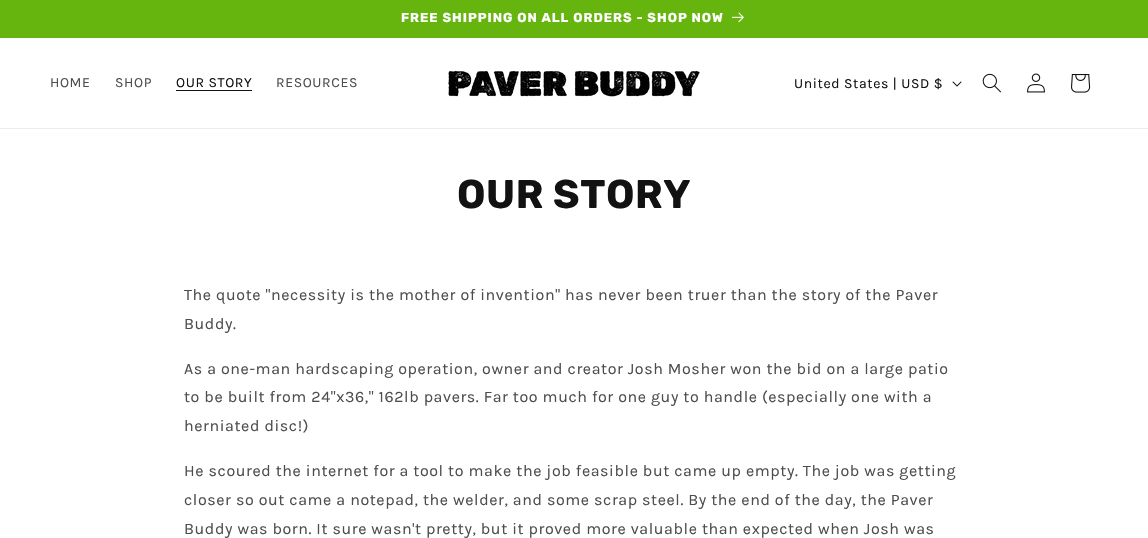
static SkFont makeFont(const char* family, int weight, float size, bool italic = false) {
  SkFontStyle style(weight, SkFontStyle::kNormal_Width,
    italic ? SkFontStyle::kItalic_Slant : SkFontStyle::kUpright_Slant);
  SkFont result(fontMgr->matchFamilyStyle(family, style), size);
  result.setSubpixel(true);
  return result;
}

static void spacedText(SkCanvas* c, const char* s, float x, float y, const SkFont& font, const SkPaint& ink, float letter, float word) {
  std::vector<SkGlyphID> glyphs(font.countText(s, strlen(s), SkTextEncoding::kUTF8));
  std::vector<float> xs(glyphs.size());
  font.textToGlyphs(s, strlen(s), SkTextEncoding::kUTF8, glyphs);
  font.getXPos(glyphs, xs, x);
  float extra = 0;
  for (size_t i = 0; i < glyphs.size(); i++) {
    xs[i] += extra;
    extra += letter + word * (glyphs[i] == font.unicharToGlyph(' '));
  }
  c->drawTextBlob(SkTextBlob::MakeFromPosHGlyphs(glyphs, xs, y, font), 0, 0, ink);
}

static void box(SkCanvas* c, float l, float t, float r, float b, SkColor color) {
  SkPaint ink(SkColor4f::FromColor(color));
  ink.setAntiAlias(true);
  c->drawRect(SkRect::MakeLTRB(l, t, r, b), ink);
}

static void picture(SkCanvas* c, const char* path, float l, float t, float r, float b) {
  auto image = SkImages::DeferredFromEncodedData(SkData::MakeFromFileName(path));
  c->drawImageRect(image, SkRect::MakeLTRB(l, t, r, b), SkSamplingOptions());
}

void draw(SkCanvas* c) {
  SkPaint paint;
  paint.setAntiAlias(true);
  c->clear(0xffffffff);
  box(c, 0, 0, 1148, 38, 0xff66b50f);
  SkFont face1 = makeFont("Rubik", 700, 13);
  paint.setColor(0xffffffff);
  spacedText(c, "FREE SHIPPING ON ALL ORDERS - SHOP NOW", 401, 22, face1, paint, 1, 0);
  picture(c, "img_01.png", 732, 12, 744, 23);
  box(c, 0, 128, 1148, 129, 0xffececec);
  SkFont face2 = makeFont("Karla", 400, 14);
  paint.setColor(0xff4d4d4d);
  spacedText(c, "HOME", 50, 87, face2, paint, 0.6f, 0);
  spacedText(c, "SHOP", 115, 87, face2, paint, 0.6f, 0);
  paint.setColor(0xff121212);
  spacedText(c, "OUR STORY", 176, 87, face2, paint, 0.6f, 0);
  box(c, 176, 90, 252, 91, 0xff121212);
  paint.setColor(0xff4d4d4d);
  spacedText(c, "RESOURCES", 276, 87, face2, paint, 0.6f, 0);
  picture(c, "img_02.png", 448, 70, 700, 97);
  paint.setColor(0xff121212);
  spacedText(c, "United States | USD $", 794, 88, face2, paint, 0.6f, 0);
  picture(c, "img_03.png", 952, 81, 962, 87);
  picture(c, "img_04.png", 982, 73, 1001, 93);
  picture(c, "img_05.png", 1027, 73, 1045, 93);
  picture(c, "img_06.png", 1071, 74, 1091, 93);
  SkFont face3 = makeFont("Rubik", 700, 40);
  spacedText(c, "OUR STORY", 457, 208, face3, paint, 0.6f, 0);
  SkFont face4 = makeFont("Karla", 400, 16);
  paint.setColor(0xff4d4d4d);
  spacedText(c, "The quote \"necessity is the mother of invention\" has never been truer than the story of the Paver", 184, 300, face4, paint, 0.6f, 0);
  spacedText(c, "Buddy.", 184, 329, face4, paint, 0.6f, 0);
  spacedText(c, "As a one-man hardscaping operation, owner and creator Josh Mosher won the bid on a large patio", 184, 374, face4, paint, 0.6f, 0);
  spacedText(c, "to be built from 24\"x36,\" 162lb pavers. Far too much for one guy to handle (especially one with a", 184, 402, face4, paint, 0.6f, 0);
  spacedText(c, "herniated disc!)", 184, 431, face4, paint, 0.6f, 0);
  spacedText(c, "He scoured the internet for a tool to make the job feasible but came up empty. The job was getting", 184, 476, face4, paint, 0.6f, 0);
  spacedText(c, "closer so out came a notepad, the welder, and some scrap steel. By the end of the day, the Paver", 184, 505, face4, paint, 0.6f, 0);
  spacedText(c, "Buddy was born. It sure wasn't pretty, but it proved more valuable than expected when Josh was", 184, 534, face4, paint, 0.6f, 0);
}
